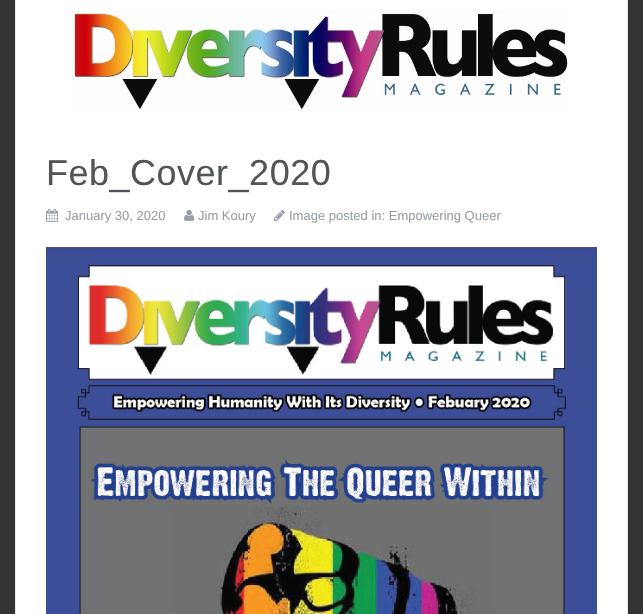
static SkFont makeFont(const char* family, int weight, float size, bool italic = false) {
  SkFontStyle style(weight, SkFontStyle::kNormal_Width,
    italic ? SkFontStyle::kItalic_Slant : SkFontStyle::kUpright_Slant);
  SkFont result(fontMgr->matchFamilyStyle(family, style), size);
  result.setSubpixel(true);
  return result;
}

static void text(SkCanvas* c, const char* s, float x, float y, const SkFont& font, SkColor color) {
  SkPaint ink(SkColor4f::FromColor(color));
  ink.setAntiAlias(true);
  c->drawString(s, x, y, font, ink);
}

static void spacedText(SkCanvas* c, const char* s, float x, float y, const SkFont& font, const SkPaint& ink, float letter, float word) {
  std::vector<SkGlyphID> glyphs(font.countText(s, strlen(s), SkTextEncoding::kUTF8));
  std::vector<float> xs(glyphs.size());
  font.textToGlyphs(s, strlen(s), SkTextEncoding::kUTF8, glyphs);
  font.getXPos(glyphs, xs, x);
  float extra = 0;
  for (size_t i = 0; i < glyphs.size(); i++) {
    xs[i] += extra;
    extra += letter + word * (glyphs[i] == font.unicharToGlyph(' '));
  }
  c->drawTextBlob(SkTextBlob::MakeFromPosHGlyphs(glyphs, xs, y, font), 0, 0, ink);
}

static void box(SkCanvas* c, float l, float t, float r, float b, SkColor color) {
  SkPaint ink(SkColor4f::FromColor(color));
  ink.setAntiAlias(true);
  c->drawRect(SkRect::MakeLTRB(l, t, r, b), ink);
}

static void picture(SkCanvas* c, const char* path, float l, float t, float r, float b) {
  auto image = SkImages::DeferredFromEncodedData(SkData::MakeFromFileName(path));
  c->drawImageRect(image, SkRect::MakeLTRB(l, t, r, b), SkSamplingOptions());
}

void draw(SkCanvas* c) {
  SkPaint paint;
  paint.setAntiAlias(true);
  c->clear(0xff333333);
  box(c, 16, 0, 627, 614, 0xffffffff);
  box(c, 627, 0, 628, 614, 0xffebebeb);
  box(c, 15, 0, 16, 614, 0xffebebeb);
  picture(c, "img_01.png", 72, 10, 568, 110);
  SkFont face1 = makeFont("Liberation Sans", 400, 36);
  paint.setColor(0xff505559);
  spacedText(c, "Feb_Cover_2020", 46, 185, face1, paint, 0.5f, 0);
  picture(c, "img_02.png", 46, 208, 59, 222);
  SkFont face2 = makeFont("Liberation Sans", 400, 13);
  text(c, "January 30, 2020", 65, 220, face2, 0xff989fa8);
  picture(c, "img_03.png", 184, 209, 195, 221);
  text(c, "Jim Koury", 198, 220, face2, 0xff989fa8);
  picture(c, "img_04.png", 274, 210, 285, 221);
  text(c, "Image posted in: Empowering Queer", 289, 220, face2, 0xff989fa8);
  picture(c, "img_05.png", 46, 247, 597, 614);
}
